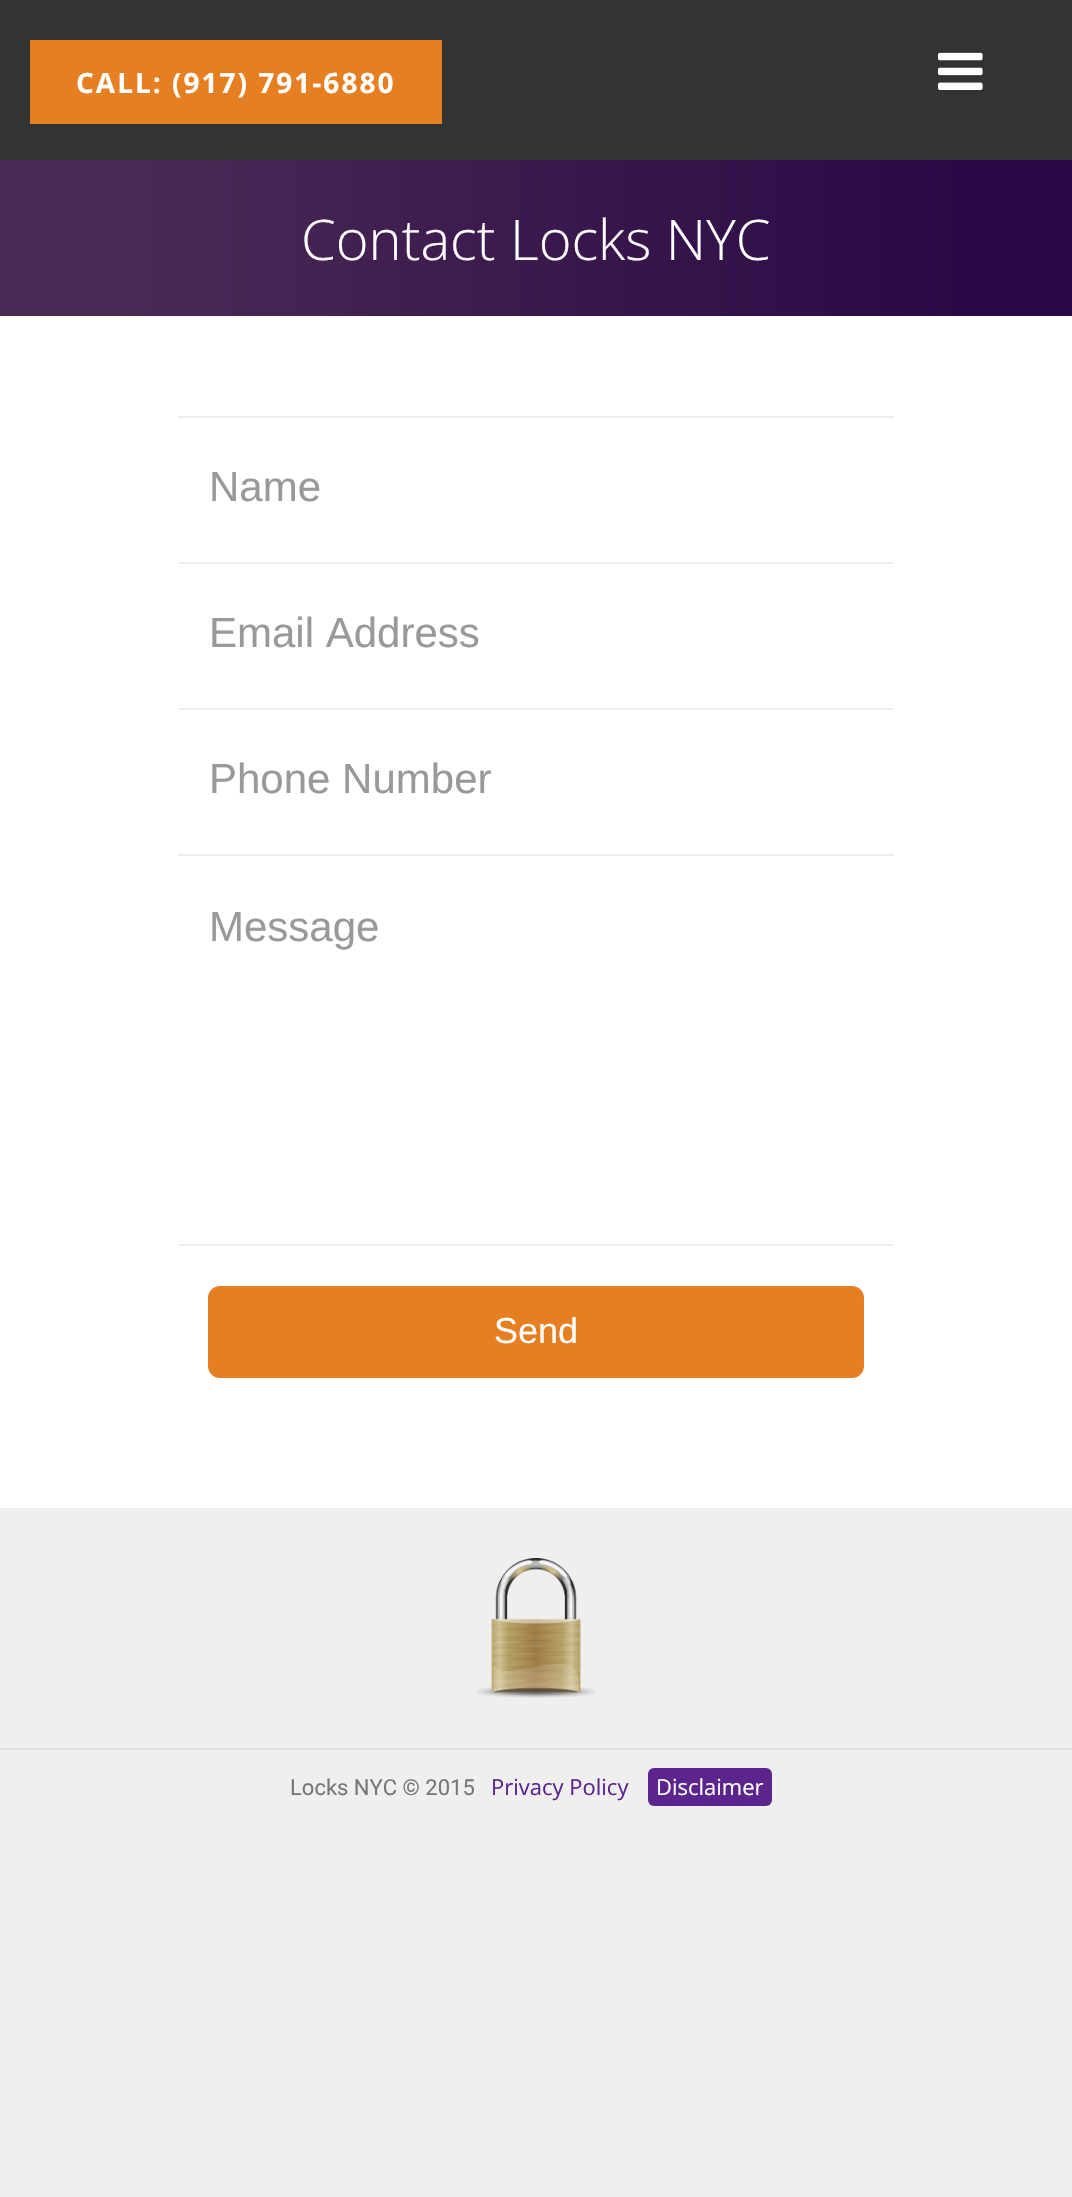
static SkFont makeFont(const char* family, int weight, float size, bool italic = false) {
  SkFontStyle style(weight, SkFontStyle::kNormal_Width,
    italic ? SkFontStyle::kItalic_Slant : SkFontStyle::kUpright_Slant);
  SkFont result(fontMgr->matchFamilyStyle(family, style), size);
  result.setSubpixel(true);
  return result;
}

static void text(SkCanvas* c, const char* s, float x, float y, const SkFont& font, SkColor color) {
  SkPaint ink(SkColor4f::FromColor(color));
  ink.setAntiAlias(true);
  c->drawString(s, x, y, font, ink);
}

static void spacedText(SkCanvas* c, const char* s, float x, float y, const SkFont& font, const SkPaint& ink, float letter, float word) {
  std::vector<SkGlyphID> glyphs(font.countText(s, strlen(s), SkTextEncoding::kUTF8));
  std::vector<float> xs(glyphs.size());
  font.textToGlyphs(s, strlen(s), SkTextEncoding::kUTF8, glyphs);
  font.getXPos(glyphs, xs, x);
  float extra = 0;
  for (size_t i = 0; i < glyphs.size(); i++) {
    xs[i] += extra;
    extra += letter + word * (glyphs[i] == font.unicharToGlyph(' '));
  }
  c->drawTextBlob(SkTextBlob::MakeFromPosHGlyphs(glyphs, xs, y, font), 0, 0, ink);
}

static void box(SkCanvas* c, float l, float t, float r, float b, SkColor color) {
  SkPaint ink(SkColor4f::FromColor(color));
  ink.setAntiAlias(true);
  c->drawRect(SkRect::MakeLTRB(l, t, r, b), ink);
}

static void roundBox(SkCanvas* c, float l, float t, float r, float b, float radius, SkColor color) {
  SkPaint ink(SkColor4f::FromColor(color));
  ink.setAntiAlias(true);
  c->drawRoundRect(SkRect::MakeLTRB(l, t, r, b), radius, radius, ink);
}

static void picture(SkCanvas* c, const char* path, float l, float t, float r, float b) {
  auto image = SkImages::DeferredFromEncodedData(SkData::MakeFromFileName(path));
  c->drawImageRect(image, SkRect::MakeLTRB(l, t, r, b), SkSamplingOptions());
}

void draw(SkCanvas* c) {
  SkPaint paint;
  paint.setAntiAlias(true);
  c->clear(0xffefefef);
  box(c, 0, 316, 1072, 1508, 0xffffffff);
  box(c, 0, 0, 1072, 160, 0xff333333);
  box(c, 30, 40, 442, 124, 0xffe67e22);
  SkFont face1 = makeFont("Open Sans", 700, 28);
  paint.setColor(0xffffffff);
  spacedText(c, "CALL: (917) 791-6880", 76, 93, face1, paint, 2, 0);
  picture(c, "img_01.png", 938, 52, 983, 90);
  {
    const SkColor colors[] = {0xff4c2a56, 0xff2a0845};
    const float stops[] = {0.1f, 0.9f};
    const SkPoint ends[] = {{0, 238}, {1072, 238}};
    paint.setShader(SkGradientShader::MakeLinear(ends, colors, stops, 2, SkTileMode::kClamp));
    paint.setAlpha(255);
  }
  c->drawRect(SkRect::MakeLTRB(0, 160, 1072, 316), paint);
  SkFont face2 = makeFont("Open Sans", 300, 56);
  text(c, "Contact Locks NYC", 301, 260, face2, 0xffffffff);
  box(c, 178, 416, 894, 418, 0xffeeeeee);
  box(c, 178, 562, 894, 564, 0xffeeeeee);
  SkFont face3 = makeFont("Liberation Sans", 400, 42);
  text(c, "Name", 209, 501, face3, 0xff999999);
  box(c, 178, 708, 894, 710, 0xffeeeeee);
  text(c, "Email Address", 209, 647, face3, 0xff999999);
  box(c, 178, 854, 894, 856, 0xffeeeeee);
  text(c, "Phone Number", 209, 793, face3, 0xff999999);
  box(c, 178, 1244, 894, 1246, 0xffeeeeee);
  text(c, "Message", 209, 941, face3, 0xff999999);
  paint.setShader(nullptr);
  paint.setColor(0xffe67e22);
  c->drawRoundRect(SkRect::MakeLTRB(209, 1287, 863, 1377), 11, 11, paint);
  paint.setStyle(SkPaint::kStroke_Style);
  paint.setStrokeWidth(2);
  c->drawRoundRect(SkRect::MakeLTRB(209, 1287, 863, 1377), 11, 11, paint);
  SkFont face4 = makeFont("Liberation Sans", 400, 36);
  text(c, "Send", 494, 1343, face4, 0xffffffff);
  picture(c, "img_02.png", 477, 1558, 595, 1698);
  box(c, 0, 1748, 1072, 1750, 0xffe2e2e2);
  SkFont face5 = makeFont("Roboto", 400, 22);
  text(c, "Locks NYC © 2015", 290, 1795, face5, 0xff777777);
  SkFont face6 = makeFont("Open Sans", 400, 22);
  text(c, "Privacy Policy", 491, 1795, face6, 0xff5c258d);
  roundBox(c, 648, 1768, 772, 1806, 6, 0xff5c258d);
  text(c, "Disclaimer", 656, 1795, face6, 0xffffffff);
}
